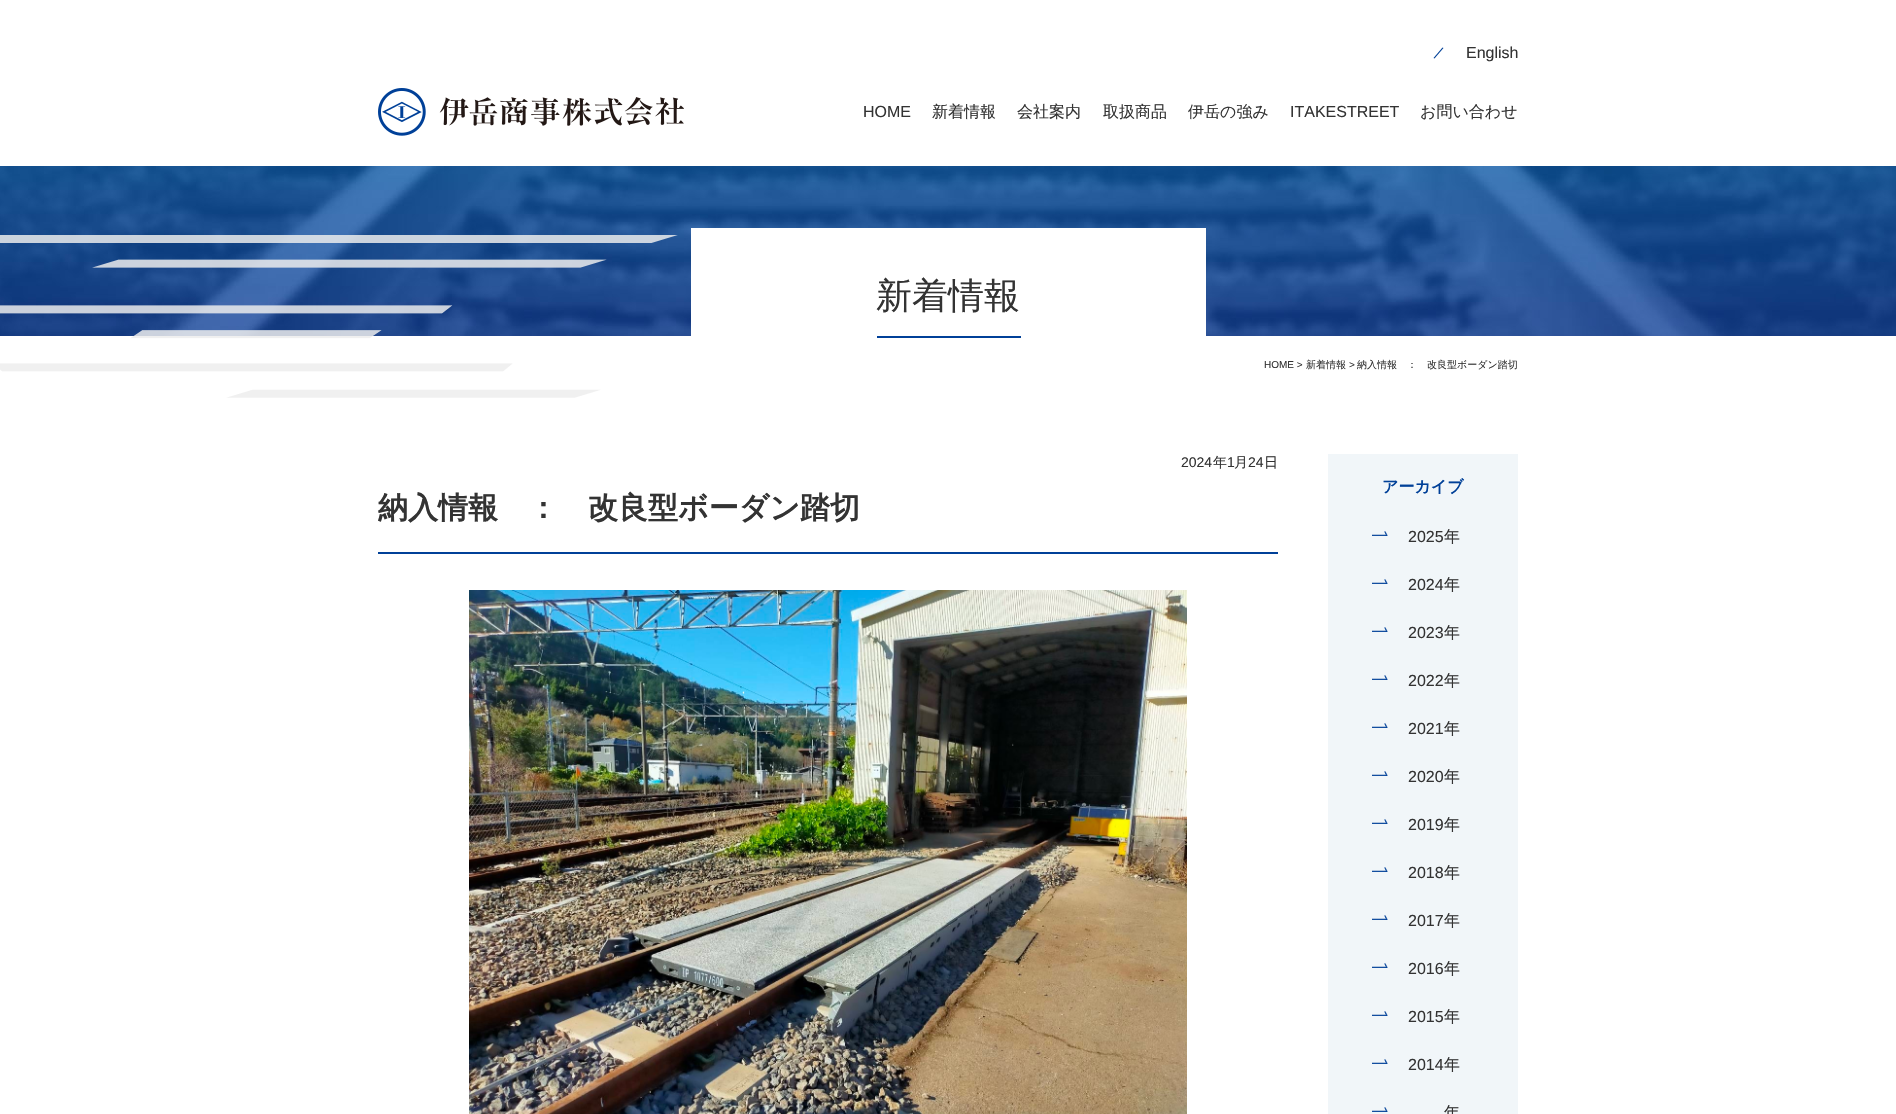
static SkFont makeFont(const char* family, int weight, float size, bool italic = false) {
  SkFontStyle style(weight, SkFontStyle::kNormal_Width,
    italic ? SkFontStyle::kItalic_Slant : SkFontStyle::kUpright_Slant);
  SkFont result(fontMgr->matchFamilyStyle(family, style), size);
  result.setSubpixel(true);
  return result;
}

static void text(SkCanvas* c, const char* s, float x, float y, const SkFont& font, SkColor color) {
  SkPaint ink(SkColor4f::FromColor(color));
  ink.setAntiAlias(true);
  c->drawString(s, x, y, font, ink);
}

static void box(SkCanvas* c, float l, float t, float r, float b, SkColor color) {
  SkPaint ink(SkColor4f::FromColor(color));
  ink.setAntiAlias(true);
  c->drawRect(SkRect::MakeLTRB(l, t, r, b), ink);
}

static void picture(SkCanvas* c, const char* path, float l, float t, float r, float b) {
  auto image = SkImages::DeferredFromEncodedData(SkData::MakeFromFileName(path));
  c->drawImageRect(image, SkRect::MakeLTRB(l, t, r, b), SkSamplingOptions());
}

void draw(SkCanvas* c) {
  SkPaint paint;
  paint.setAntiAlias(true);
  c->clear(0xffffffff);
  picture(c, "img_01.png", 378, 88, 684, 136);
  paint.setColor(0xff004098);
  c->drawPath(SkPathBuilder().moveTo(1433.5f, 58).lineTo(1442.5f, 47.5f).lineTo(1443.5f, 48).lineTo(1434.5f, 58.5f).close().detach(), paint);
  SkFont face1 = makeFont("Liberation Sans", 400, 16);
  text(c, "English", 1466, 58, face1, 0xff333333);
  text(c, "HOME", 863, 117, face1, 0xff333333);
  SkFont face2 = makeFont("WenQuanYi Zen Hei", 500, 16);
  text(c, "新着情報", 932, 117, face2, 0xff333333);
  text(c, "会社案内", 1017, 117, face2, 0xff333333);
  text(c, "取扱商品", 1103, 117, face2, 0xff333333);
  text(c, "伊岳の強み", 1188, 117, face2, 0xff333333);
  text(c, "ITAKESTREET", 1290, 117, face1, 0xff333333);
  text(c, "お問い合わせ", 1420, 117, face2, 0xff333333);
  picture(c, "img_02.png", 0, 166, 1896, 336);
  picture(c, "img_03.png", 0, 235, 678, 398);
  box(c, 691, 228, 1206, 336, 0xffffffff);
  box(c, 877, 336, 1021, 338, 0xff004098);
  SkFont face3 = makeFont("WenQuanYi Zen Hei", 500, 36);
  text(c, "新着情報", 876, 308, face3, 0xff333333);
  SkFont face4 = makeFont("Liberation Sans", 400, 10);
  text(c, "HOME >", 1264, 368, face4, 0xff333333);
  SkFont face5 = makeFont("WenQuanYi Zen Hei", 500, 10);
  text(c, "新着情報", 1306, 368, face5, 0xff333333);
  text(c, ">", 1349, 368, face4, 0xff333333);
  text(c, "納入情報　：　改良型ボーダン踏切", 1357, 368, face5, 0xff333333);
  SkFont face6 = makeFont("Liberation Sans", 400, 14);
  text(c, "2024", 1181, 467, face6, 0xff333333);
  SkFont face7 = makeFont("WenQuanYi Zen Hei", 500, 14);
  text(c, "年", 1213, 467, face7, 0xff333333);
  text(c, "1", 1227, 467, face6, 0xff333333);
  text(c, "月", 1234, 467, face7, 0xff333333);
  text(c, "24", 1248, 467, face6, 0xff333333);
  text(c, "日", 1264, 467, face7, 0xff333333);
  box(c, 378, 552, 1278, 554, 0xff004098);
  SkFont face8 = makeFont("WenQuanYi Zen Hei", 700, 30);
  text(c, "納入情報　：　改良型ボーダン踏切", 378, 518, face8, 0xff333333);
  picture(c, "img_04.png", 469, 590, 1187, 1114);
  box(c, 1328, 454, 1518, 1114, 0xfff1f6f9);
  SkFont face9 = makeFont("WenQuanYi Zen Hei", 700, 16);
  text(c, "アーカイブ", 1382, 492, face9, 0xff004098);
  picture(c, "img_05.png", 1372, 531, 1388, 536);
  text(c, "2025", 1408, 542, face1, 0xff333333);
  text(c, "年", 1444, 542, face2, 0xff333333);
  picture(c, "img_05.png", 1372, 579, 1388, 584);
  text(c, "2024", 1408, 590, face1, 0xff333333);
  text(c, "年", 1444, 590, face2, 0xff333333);
  picture(c, "img_05.png", 1372, 627, 1388, 632);
  text(c, "2023", 1408, 638, face1, 0xff333333);
  text(c, "年", 1444, 638, face2, 0xff333333);
  picture(c, "img_05.png", 1372, 675, 1388, 680);
  text(c, "2022", 1408, 686, face1, 0xff333333);
  text(c, "年", 1444, 686, face2, 0xff333333);
  picture(c, "img_05.png", 1372, 723, 1388, 728);
  text(c, "2021", 1408, 734, face1, 0xff333333);
  text(c, "年", 1444, 734, face2, 0xff333333);
  picture(c, "img_05.png", 1372, 771, 1388, 776);
  text(c, "2020", 1408, 782, face1, 0xff333333);
  text(c, "年", 1444, 782, face2, 0xff333333);
  picture(c, "img_05.png", 1372, 819, 1388, 824);
  text(c, "2019", 1408, 830, face1, 0xff333333);
  text(c, "年", 1444, 830, face2, 0xff333333);
  picture(c, "img_05.png", 1372, 867, 1388, 872);
  text(c, "2018", 1408, 878, face1, 0xff333333);
  text(c, "年", 1444, 878, face2, 0xff333333);
  picture(c, "img_05.png", 1372, 915, 1388, 920);
  text(c, "2017", 1408, 926, face1, 0xff333333);
  text(c, "年", 1444, 926, face2, 0xff333333);
  picture(c, "img_05.png", 1372, 963, 1388, 968);
  text(c, "2016", 1408, 974, face1, 0xff333333);
  text(c, "年", 1444, 974, face2, 0xff333333);
  picture(c, "img_05.png", 1372, 1011, 1388, 1016);
  text(c, "2015", 1408, 1022, face1, 0xff333333);
  text(c, "年", 1444, 1022, face2, 0xff333333);
  picture(c, "img_05.png", 1372, 1059, 1388, 1064);
  text(c, "2014", 1408, 1070, face1, 0xff333333);
  text(c, "年", 1444, 1070, face2, 0xff333333);
  picture(c, "img_05.png", 1372, 1107, 1388, 1112);
  text(c, "年", 1444, 1118, face2, 0xff333333);
}
